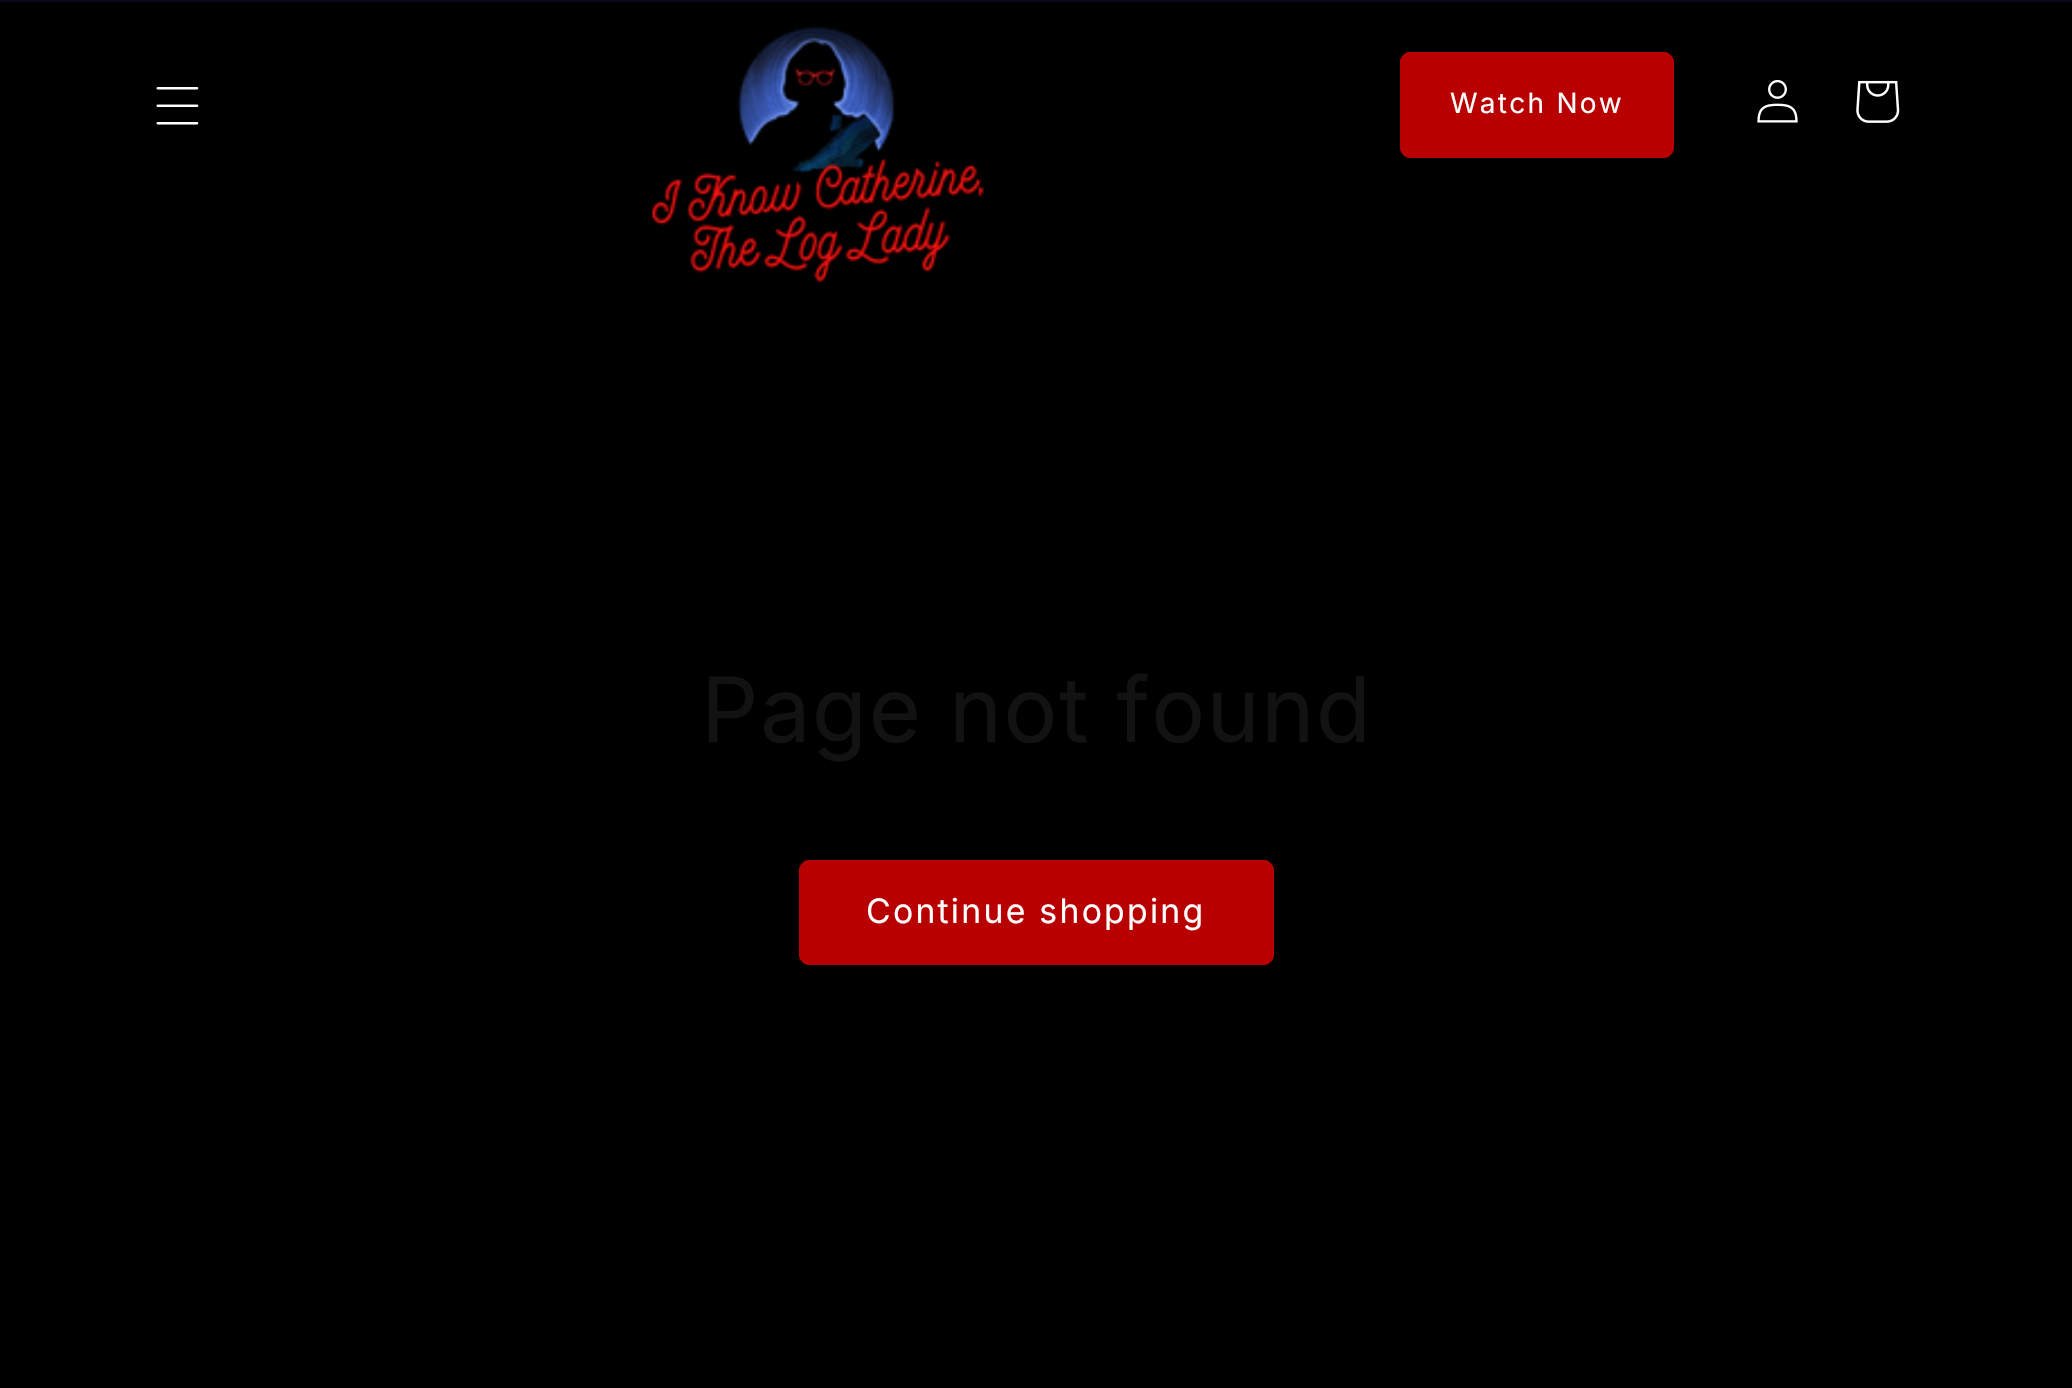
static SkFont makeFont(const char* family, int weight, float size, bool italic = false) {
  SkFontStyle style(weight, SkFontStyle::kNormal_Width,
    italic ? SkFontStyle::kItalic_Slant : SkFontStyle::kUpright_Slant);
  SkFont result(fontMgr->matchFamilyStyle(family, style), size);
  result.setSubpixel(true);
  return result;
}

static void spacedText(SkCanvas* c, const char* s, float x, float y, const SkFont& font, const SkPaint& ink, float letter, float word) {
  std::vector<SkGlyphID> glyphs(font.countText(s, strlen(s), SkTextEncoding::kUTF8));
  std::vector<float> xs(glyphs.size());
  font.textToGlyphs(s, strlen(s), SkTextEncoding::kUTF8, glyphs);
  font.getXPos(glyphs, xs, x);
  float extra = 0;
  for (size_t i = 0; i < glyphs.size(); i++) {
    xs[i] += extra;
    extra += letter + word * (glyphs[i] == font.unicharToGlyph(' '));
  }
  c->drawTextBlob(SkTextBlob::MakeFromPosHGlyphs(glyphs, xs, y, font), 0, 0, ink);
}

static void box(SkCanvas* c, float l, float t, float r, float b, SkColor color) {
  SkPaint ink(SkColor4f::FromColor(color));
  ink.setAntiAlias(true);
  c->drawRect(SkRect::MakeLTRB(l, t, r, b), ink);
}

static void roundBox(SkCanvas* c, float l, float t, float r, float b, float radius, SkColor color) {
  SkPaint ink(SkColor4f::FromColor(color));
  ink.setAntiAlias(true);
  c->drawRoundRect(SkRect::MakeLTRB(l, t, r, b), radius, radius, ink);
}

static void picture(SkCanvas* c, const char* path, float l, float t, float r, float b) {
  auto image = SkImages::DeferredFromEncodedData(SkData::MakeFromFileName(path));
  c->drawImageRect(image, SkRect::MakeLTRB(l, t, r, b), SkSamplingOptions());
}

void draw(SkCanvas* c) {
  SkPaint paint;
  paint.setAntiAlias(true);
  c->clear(0xff000000);
  box(c, 0, 0, 2072, 2, 0xff331b9a);
  {
    const SkColor colors[] = {0xe6000000, 0x8c000000, 0x00000000};
    const float stops[] = {0, 0.55f, 1};
    const SkPoint ends[] = {{1036, -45}, {1036, 335}};
    paint.setShader(SkGradientShader::MakeLinear(ends, colors, stops, 3, SkTileMode::kClamp));
    paint.setAlpha(255);
  }
  c->drawRect(SkRect::MakeLTRB(0, 0, 2072, 2), paint);
  picture(c, "img_01.png", 156, 87, 199, 125);
  picture(c, "img_02.png", 651, 26, 985, 283);
  roundBox(c, 1400, 52, 1674, 158, 11, 0xffb90000);
  paint.setStyle(SkPaint::kStroke_Style);
  paint.setStrokeWidth(2);
  paint.setShader(nullptr);
  paint.setColor(0xffb90000);
  c->drawRoundRect(SkRect::MakeLTRB(1401, 53, 1673, 157), 10, 10, paint);
  SkFont face1 = makeFont("Inter", 400, 28);
  paint.setStyle(SkPaint::kFill_Style);
  paint.setColor(0xffffffff);
  spacedText(c, "Watch Now", 1450, 113, face1, paint, 2.25f, 0);
  picture(c, "img_03.png", 1757, 79, 1798, 123);
  picture(c, "img_04.png", 1856, 80, 1900, 123);
  SkFont face2 = makeFont("Inter", 400, 90);
  paint.setColor(0xff121212);
  spacedText(c, "Page not found", 701, 742, face2, paint, 1.4f, 0);
  roundBox(c, 799, 860, 1274, 965, 11, 0xffb90000);
  paint.setStyle(SkPaint::kStroke_Style);
  paint.setColor(0xffb90000);
  c->drawRoundRect(SkRect::MakeLTRB(800, 861, 1273, 964), 10, 10, paint);
  SkFont face3 = makeFont("Inter", 400, 33.75f);
  paint.setStyle(SkPaint::kFill_Style);
  paint.setColor(0xffffffff);
  spacedText(c, "Continue shopping", 866, 923, face3, paint, 2.25f, 0);
}
